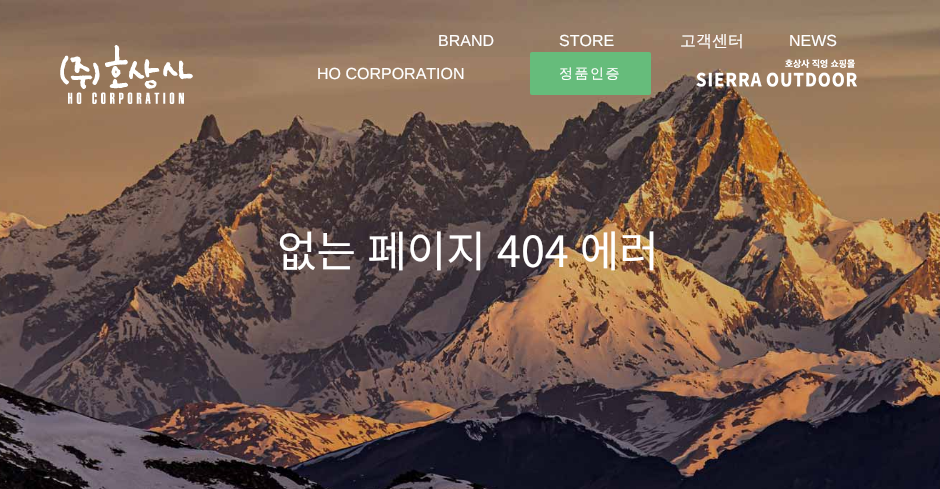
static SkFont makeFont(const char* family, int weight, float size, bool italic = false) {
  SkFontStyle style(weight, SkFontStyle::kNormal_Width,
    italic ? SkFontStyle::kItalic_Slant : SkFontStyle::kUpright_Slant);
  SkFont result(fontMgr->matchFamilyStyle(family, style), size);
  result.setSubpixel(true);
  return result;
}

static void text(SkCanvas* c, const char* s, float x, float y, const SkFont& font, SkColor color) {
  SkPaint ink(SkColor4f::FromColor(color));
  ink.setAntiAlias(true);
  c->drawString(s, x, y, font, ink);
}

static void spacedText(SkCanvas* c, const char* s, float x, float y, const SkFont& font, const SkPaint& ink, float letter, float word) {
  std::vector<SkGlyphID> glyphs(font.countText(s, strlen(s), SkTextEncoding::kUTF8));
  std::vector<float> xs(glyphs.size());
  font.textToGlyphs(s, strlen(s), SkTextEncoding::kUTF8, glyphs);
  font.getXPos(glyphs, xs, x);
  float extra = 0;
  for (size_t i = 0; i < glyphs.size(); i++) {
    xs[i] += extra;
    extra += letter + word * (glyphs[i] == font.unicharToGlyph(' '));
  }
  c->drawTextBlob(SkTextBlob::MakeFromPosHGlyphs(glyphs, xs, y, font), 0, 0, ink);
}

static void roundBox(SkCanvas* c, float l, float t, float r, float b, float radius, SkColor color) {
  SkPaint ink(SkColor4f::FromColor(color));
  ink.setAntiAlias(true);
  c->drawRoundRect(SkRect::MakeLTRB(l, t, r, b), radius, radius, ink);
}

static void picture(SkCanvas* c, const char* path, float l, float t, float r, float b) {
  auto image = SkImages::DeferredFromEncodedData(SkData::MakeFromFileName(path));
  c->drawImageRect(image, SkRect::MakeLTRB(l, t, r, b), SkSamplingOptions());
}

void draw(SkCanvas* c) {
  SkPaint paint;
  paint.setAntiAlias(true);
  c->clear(0xffffffff);
  picture(c, "img_03.png", 0, 0, 940, 489);
  picture(c, "img_01.png", 60, 45, 193, 104);
  SkFont face1 = makeFont("Liberation Sans", 400, 16);
  text(c, "BRAND", 438, 46, face1, 0xffffffff);
  text(c, "STORE", 559, 46, face1, 0xffffffff);
  SkFont face2 = makeFont("WenQuanYi Zen Hei", 500, 16);
  text(c, "고객센터", 680, 46, face2, 0xffffffff);
  text(c, "NEWS", 789, 46, face1, 0xffffffff);
  text(c, "HO CORPORATION", 317, 79, face1, 0xffffffff);
  roundBox(c, 530, 52, 651, 95, 2, 0xff66bc7b);
  SkFont face3 = makeFont("WenQuanYi Zen Hei", 500, 14);
  paint.setColor(0xffffffff);
  spacedText(c, "정품인증", 559, 78, face3, paint, 1.5f, 0);
  picture(c, "img_02.png", 696, 59, 857, 87);
  SkFont face4 = makeFont("Noto Sans KR", 400, 43);
  spacedText(c, "없는 페이지 404 에러", 277, 267, face4, paint, 0, 1.5f);
}
